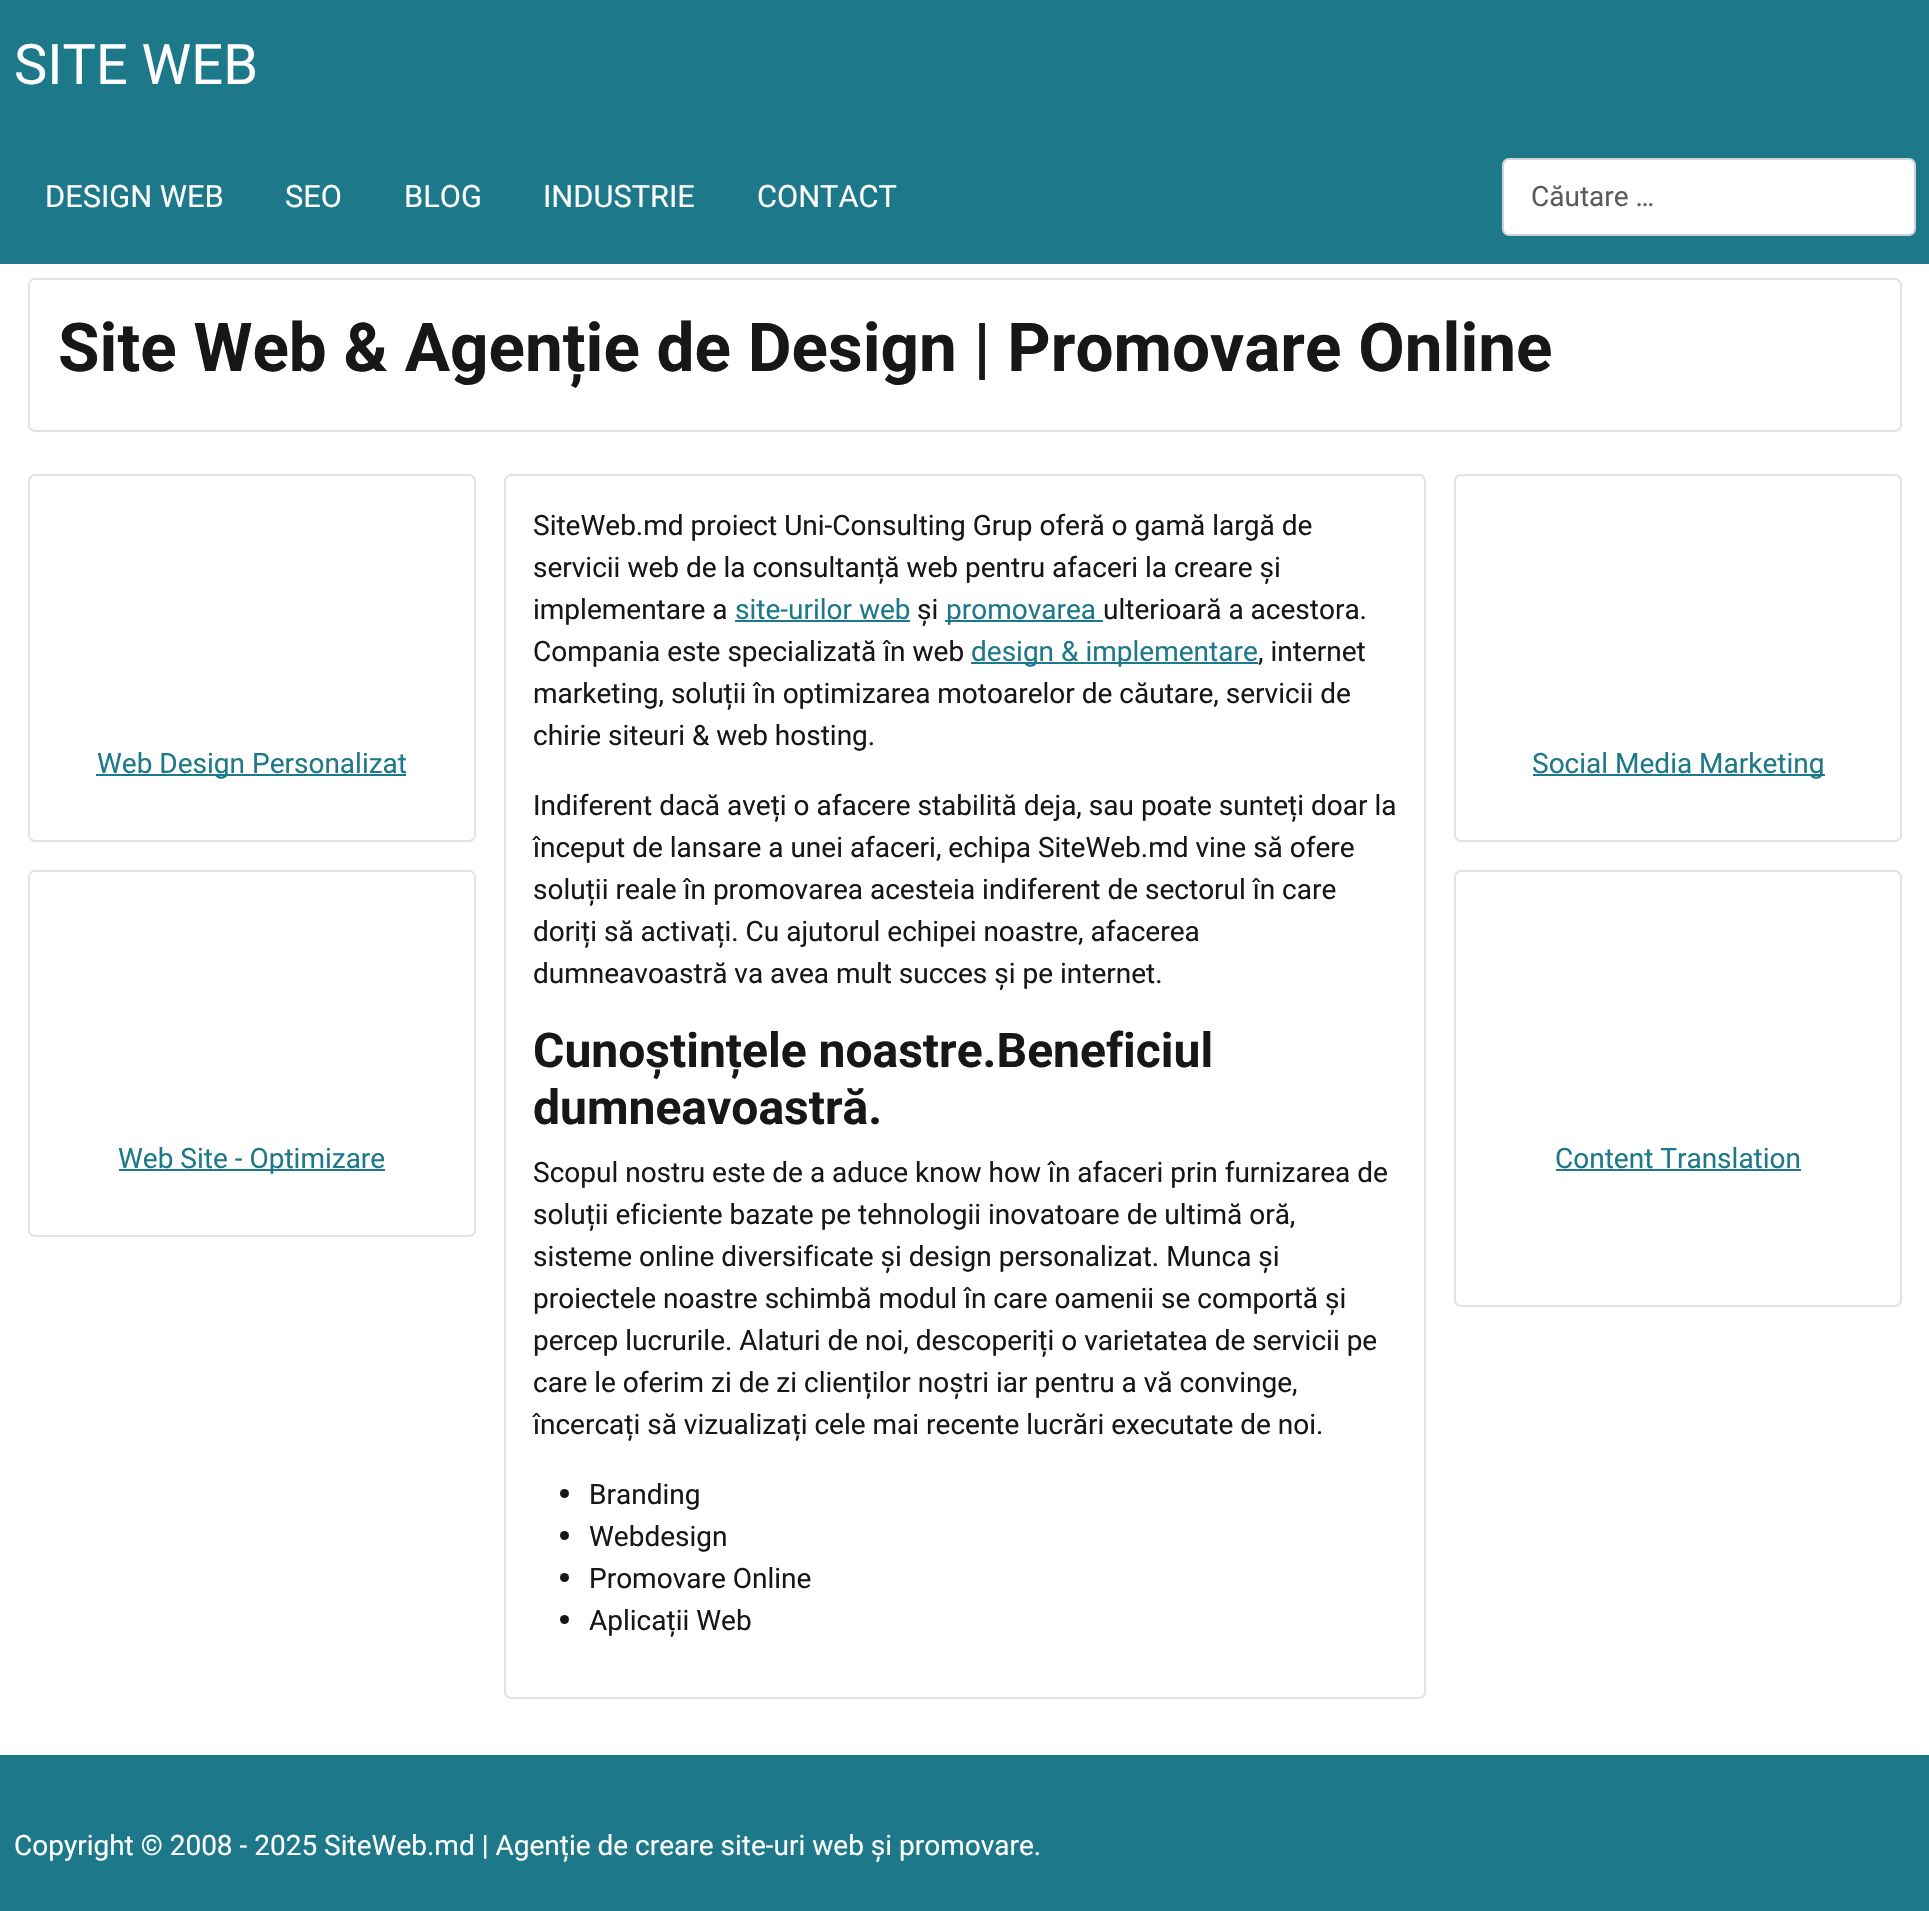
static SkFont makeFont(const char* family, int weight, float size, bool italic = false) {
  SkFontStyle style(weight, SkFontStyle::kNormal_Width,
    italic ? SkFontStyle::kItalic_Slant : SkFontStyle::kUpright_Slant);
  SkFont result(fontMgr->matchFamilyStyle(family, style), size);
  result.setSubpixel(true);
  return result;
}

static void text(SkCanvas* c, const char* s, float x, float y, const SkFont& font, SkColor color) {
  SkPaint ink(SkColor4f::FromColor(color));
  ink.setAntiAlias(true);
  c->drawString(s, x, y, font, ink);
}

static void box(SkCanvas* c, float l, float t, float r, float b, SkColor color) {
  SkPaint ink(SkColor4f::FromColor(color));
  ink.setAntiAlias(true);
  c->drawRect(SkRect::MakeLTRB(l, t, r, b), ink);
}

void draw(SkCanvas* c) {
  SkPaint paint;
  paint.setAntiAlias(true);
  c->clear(0xffffffff);
  box(c, 0, 0, 1929, 264, 0xff1d7989);
  SkFont face1 = makeFont("Roboto", 400, 56);
  text(c, "SITE WEB", 14, 84, face1, 0xfffefefe);
  SkFont face2 = makeFont("Roboto", 400, 30.75f);
  text(c, "DESIGN WEB", 45, 207, face2, 0xfffefefe);
  text(c, "SEO", 285, 207, face2, 0xfffefefe);
  text(c, "BLOG", 404, 207, face2, 0xfffefefe);
  text(c, "INDUSTRIE", 543, 207, face2, 0xfffefefe);
  text(c, "CONTACT", 757, 207, face2, 0xfffefefe);
  paint.setColor(0xffffffff);
  c->drawRoundRect(SkRect::MakeLTRB(1503, 159, 1915, 235), 6, 6, paint);
  paint.setStyle(SkPaint::kStroke_Style);
  paint.setStrokeWidth(2);
  paint.setColor(0xffced4da);
  c->drawRoundRect(SkRect::MakeLTRB(1503, 159, 1915, 235), 6, 6, paint);
  SkFont face3 = makeFont("Roboto", 400, 28);
  text(c, "Căutare …", 1531, 206, face3, 0xff595c5f);
  paint.setColor(0xffdfe3e7);
  c->drawRoundRect(SkRect::MakeLTRB(29, 279, 1901, 431), 6, 6, paint);
  SkFont face4 = makeFont("Roboto", 700, 67.45f);
  text(c, "Site Web & Agenție de Design | Promovare Online", 58, 371, face4, 0xff171717);
  c->drawRoundRect(SkRect::MakeLTRB(29, 475, 475, 841), 6, 6, paint);
  box(c, 96, 774, 406, 776, 0xff1d7989);
  text(c, "Web Design Personalizat", 97, 773, face3, 0xff1d7989);
  c->drawRoundRect(SkRect::MakeLTRB(29, 871, 475, 1236), 6, 6, paint);
  box(c, 119, 1169, 385, 1171, 0xff1d7989);
  text(c, "Web Site - Optimizare", 118, 1168, face3, 0xff1d7989);
  c->drawRoundRect(SkRect::MakeLTRB(505, 475, 1425, 1698), 6, 6, paint);
  text(c, "SiteWeb.md proiect Uni-Consulting Grup oferă o gamă largă de", 533, 535, face3, 0xff171717);
  text(c, "servicii web de la consultanță web pentru afaceri la creare și", 533, 577, face3, 0xff171717);
  text(c, "implementare a", 533, 619, face3, 0xff171717);
  text(c, "site-urilor web", 735, 619, face3, 0xff1d7989);
  box(c, 735, 620, 910, 622, 0xff1d7989);
  text(c, "și", 917, 619, face3, 0xff171717);
  box(c, 945, 620, 1103, 622, 0xff1d7989);
  text(c, "promovarea", 946, 619, face3, 0xff1d7989);
  text(c, "ulterioară a acestora.", 1103, 619, face3, 0xff171717);
  text(c, "Compania este specializată în web", 533, 661, face3, 0xff171717);
  box(c, 971, 662, 1258, 664, 0xff1d7989);
  text(c, "design & implementare", 971, 661, face3, 0xff1d7989);
  text(c, ", internet", 1258, 661, face3, 0xff171717);
  text(c, "marketing, soluții în optimizarea motoarelor de căutare, servicii de", 533, 703, face3, 0xff171717);
  text(c, "chirie siteuri & web hosting.", 533, 745, face3, 0xff171717);
  text(c, "Indiferent dacă aveți o afacere stabilită deja, sau poate sunteți doar la", 533, 815, face3, 0xff171717);
  text(c, "început de lansare a unei afaceri, echipa SiteWeb.md vine să ofere", 533, 857, face3, 0xff171717);
  text(c, "soluții reale în promovarea acesteia indiferent de sectorul în care", 533, 899, face3, 0xff171717);
  text(c, "doriți să activați. Cu ajutorul echipei noastre, afacerea", 533, 941, face3, 0xff171717);
  text(c, "dumneavoastră va avea mult succes și pe internet.", 533, 983, face3, 0xff171717);
  SkFont face5 = makeFont("Roboto", 700, 48);
  text(c, "Cunoștințele noastre.Beneficiul", 533, 1067, face5, 0xff171717);
  text(c, "dumneavoastră.", 533, 1124, face5, 0xff171717);
  text(c, "Scopul nostru este de a aduce know how în afaceri prin furnizarea de", 533, 1182, face3, 0xff171717);
  text(c, "soluții eficiente bazate pe tehnologii inovatoare de ultimă oră,", 533, 1224, face3, 0xff171717);
  text(c, "sisteme online diversificate și design personalizat. Munca și", 533, 1266, face3, 0xff171717);
  text(c, "proiectele noastre schimbă modul în care oamenii se comportă și", 533, 1308, face3, 0xff171717);
  text(c, "percep lucrurile. Alaturi de noi, descoperiți o varietatea de servicii pe", 533, 1350, face3, 0xff171717);
  text(c, "care le oferim zi de zi clienților noștri iar pentru a vă convinge,", 533, 1392, face3, 0xff171717);
  text(c, "încercați să vizualizați cele mai recente lucrări executate de noi.", 533, 1434, face3, 0xff171717);
  paint.setStyle(SkPaint::kFill_Style);
  paint.setColor(0xff171717);
  c->drawCircle(564.5f, 1493.5f, 4.5f, paint);
  text(c, "Branding", 589, 1504, face3, 0xff171717);
  c->drawCircle(564.5f, 1535.5f, 4.5f, paint);
  text(c, "Webdesign", 589, 1546, face3, 0xff171717);
  c->drawCircle(564.5f, 1577.5f, 4.5f, paint);
  text(c, "Promovare Online", 589, 1588, face3, 0xff171717);
  c->drawCircle(564.5f, 1619.5f, 4.5f, paint);
  text(c, "Aplicații Web", 589, 1630, face3, 0xff171717);
  paint.setStyle(SkPaint::kStroke_Style);
  paint.setColor(0xffdfe3e7);
  c->drawRoundRect(SkRect::MakeLTRB(1455, 475, 1901, 841), 6, 6, paint);
  box(c, 1533, 774, 1825, 776, 0xff1d7989);
  text(c, "Social Media Marketing", 1532, 773, face3, 0xff1d7989);
  c->drawRoundRect(SkRect::MakeLTRB(1455, 871, 1901, 1306), 6, 6, paint);
  text(c, "Content Translation", 1555, 1168, face3, 0xff1d7989);
  box(c, 1556, 1169, 1801, 1171, 0xff1d7989);
  box(c, 0, 1755, 1929, 1911, 0xff1d7989);
  text(c, "Copyright © 2008 - 2025 SiteWeb.md | Agenție de creare site-uri web și promovare.", 14, 1855, face3, 0xfffefefe);
}
